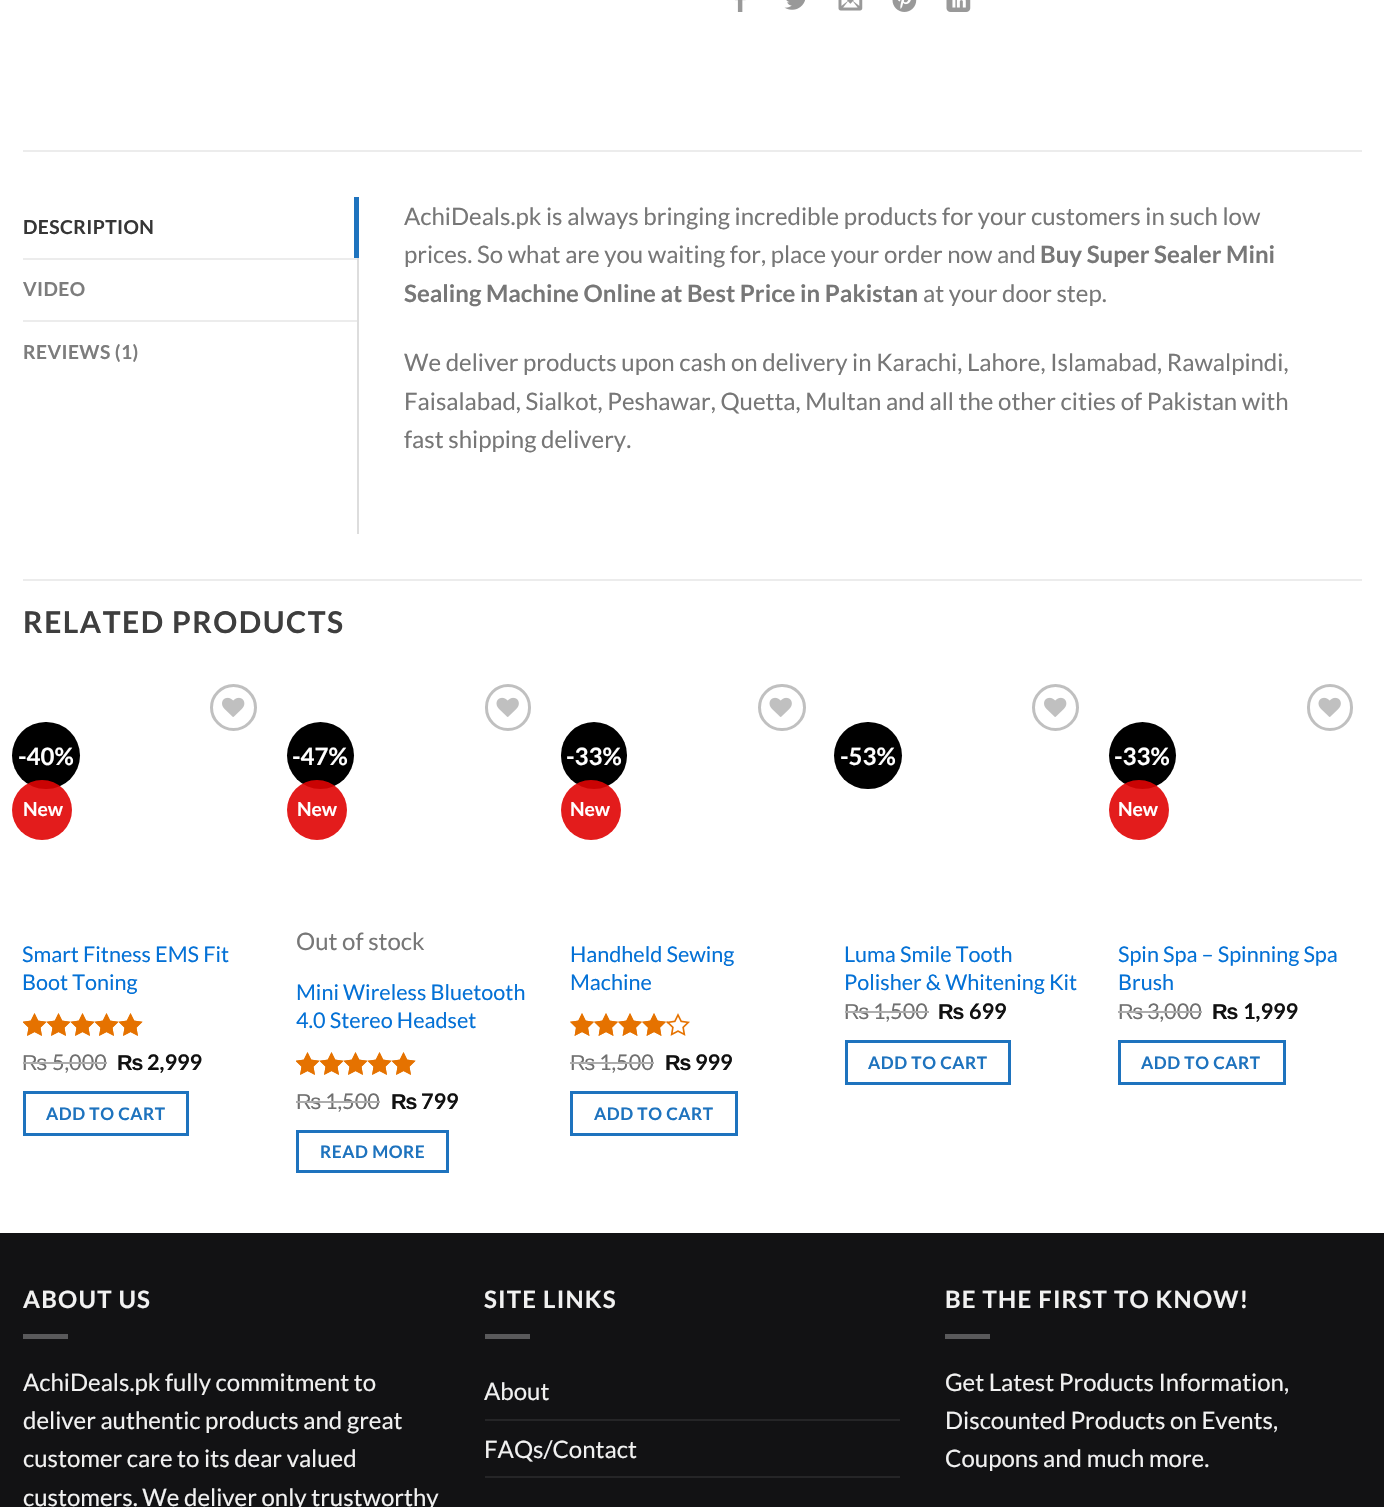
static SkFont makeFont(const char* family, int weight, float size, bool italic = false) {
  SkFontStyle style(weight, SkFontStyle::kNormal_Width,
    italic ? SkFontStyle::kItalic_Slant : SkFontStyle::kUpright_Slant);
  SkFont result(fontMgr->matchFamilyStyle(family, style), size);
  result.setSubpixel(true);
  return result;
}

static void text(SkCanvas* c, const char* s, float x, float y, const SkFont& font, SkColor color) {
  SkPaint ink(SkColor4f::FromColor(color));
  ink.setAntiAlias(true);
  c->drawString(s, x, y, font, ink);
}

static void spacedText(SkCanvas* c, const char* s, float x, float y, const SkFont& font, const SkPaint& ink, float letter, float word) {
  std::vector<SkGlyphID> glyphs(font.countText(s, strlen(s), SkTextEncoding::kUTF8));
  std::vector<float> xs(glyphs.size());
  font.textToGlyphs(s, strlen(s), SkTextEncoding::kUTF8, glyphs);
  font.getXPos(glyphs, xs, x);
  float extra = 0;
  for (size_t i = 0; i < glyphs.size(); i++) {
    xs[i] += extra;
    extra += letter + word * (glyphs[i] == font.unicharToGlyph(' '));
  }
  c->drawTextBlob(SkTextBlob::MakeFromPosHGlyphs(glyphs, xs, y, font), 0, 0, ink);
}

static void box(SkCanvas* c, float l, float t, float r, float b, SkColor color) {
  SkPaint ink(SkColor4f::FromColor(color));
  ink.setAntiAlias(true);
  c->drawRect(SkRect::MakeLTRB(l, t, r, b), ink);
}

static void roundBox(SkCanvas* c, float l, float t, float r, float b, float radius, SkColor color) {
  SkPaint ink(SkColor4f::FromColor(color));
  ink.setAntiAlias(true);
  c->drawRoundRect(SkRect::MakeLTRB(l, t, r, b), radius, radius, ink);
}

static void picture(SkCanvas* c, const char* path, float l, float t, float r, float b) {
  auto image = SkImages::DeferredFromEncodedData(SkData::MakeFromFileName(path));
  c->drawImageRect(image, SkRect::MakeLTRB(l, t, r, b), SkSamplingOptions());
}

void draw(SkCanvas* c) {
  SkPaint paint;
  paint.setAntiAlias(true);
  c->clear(0xffffffff);
  picture(c, "img_01.png", 735, 0, 746, 12);
  picture(c, "img_02.png", 784, 0, 805, 10);
  picture(c, "img_03.png", 838, 0, 863, 11);
  picture(c, "img_04.png", 892, 0, 917, 12);
  picture(c, "img_05.png", 946, 0, 971, 12);
  box(c, 23, 150, 1362, 152, 0xffececec);
  SkFont face1 = makeFont("Lato", 700, 19.25f);
  paint.setColor(0xff363636);
  spacedText(c, "DESCRIPTION", 23, 234, face1, paint, 0.4f, 0);
  box(c, 354, 197, 359, 258, 0xff1e73be);
  box(c, 23, 258, 357, 260, 0xffececec);
  paint.setColor(0xff7d7d7d);
  spacedText(c, "VIDEO", 23, 296, face1, paint, 0.4f, 0);
  box(c, 23, 320, 357, 322, 0xffececec);
  spacedText(c, "REVIEWS (1)", 23, 359, face1, paint, 0.4f, 0);
  box(c, 357, 258, 359, 534, 0xffdddddd);
  SkFont face2 = makeFont("Lato", 400, 24);
  text(c, "AchiDeals.pk is always bringing incredible products for your customers in such low", 404, 225, face2, 0xff777777);
  text(c, "prices. So what are you waiting for, place your order now and", 404, 263, face2, 0xff777777);
  SkFont face3 = makeFont("Lato", 700, 24);
  text(c, "Buy Super Sealer Mini", 1040, 263, face3, 0xff777777);
  text(c, "Sealing Machine Online at Best Price in Pakistan", 404, 302, face3, 0xff777777);
  text(c, "at your door step.", 923, 302, face2, 0xff777777);
  text(c, "We deliver products upon cash on delivery in Karachi, Lahore, Islamabad, Rawalpindi,", 404, 371, face2, 0xff777777);
  text(c, "Faisalabad, Sialkot, Peshawar, Quetta, Multan and all the other cities of Pakistan with", 404, 410, face2, 0xff777777);
  text(c, "fast shipping delivery.", 404, 448, face2, 0xff777777);
  box(c, 23, 579, 1362, 581, 0xffececec);
  SkFont face4 = makeFont("Lato", 700, 30);
  paint.setColor(0xff3e3e3e);
  spacedText(c, "RELATED PRODUCTS", 23, 633, face4, paint, 1.5f, 0);
  roundBox(c, 12, 722, 80, 789, 33.5f, 0xff000000);
  text(c, "-40%", 18, 765, face3, 0xffffffff);
  paint.setColor(0xe6e00303);
  c->drawCircle(42, 810, 30, paint);
  text(c, "New", 23, 816, face1, 0xffffffff);
  paint.setStyle(SkPaint::kStroke_Style);
  paint.setStrokeWidth(3);
  paint.setColor(0xffc0c0c0);
  c->drawCircle(233.5f, 707.5f, 22, paint);
  picture(c, "img_06.png", 222, 697, 245, 717);
  SkFont face5 = makeFont("Lato", 400, 21.6f);
  text(c, "Smart Fitness EMS Fit", 22, 962, face5, 0xff0471d6);
  text(c, "Boot Toning", 22, 990, face5, 0xff0471d6);
  picture(c, "img_07.png", 23, 1013, 143, 1036);
  picture(c, "img_08.png", 23, 1013, 143, 1036);
  SkFont face6 = makeFont("Liberation Sans", 400, 21.6f);
  text(c, "₨", 22, 1070, face6, 0xff707070);
  box(c, 23, 1062, 48, 1064, 0xffadadad);
  text(c, "5,000", 52, 1070, face5, 0xff707070);
  box(c, 48, 1062, 107, 1064, 0xffadadad);
  SkFont face7 = makeFont("Liberation Sans", 700, 21.6f);
  text(c, "₨", 117, 1070, face7, 0xff111111);
  SkFont face8 = makeFont("Lato", 700, 21.6f);
  text(c, "2,999", 147, 1070, face8, 0xff111111);
  paint.setColor(0xff1e73be);
  c->drawRect(SkRect::MakeLTRB(24.5f, 1092.5f, 187.5f, 1134.5f), paint);
  SkFont face9 = makeFont("Lato", 700, 17.25f);
  paint.setStyle(SkPaint::kFill_Style);
  spacedText(c, "ADD TO CART", 46, 1120, face9, paint, 0.5f, 0);
  paint.setColor(0xff000000);
  c->drawCircle(320.5f, 755.5f, 33.5f, paint);
  text(c, "-47%", 292, 765, face3, 0xffffffff);
  paint.setColor(0xe6e00303);
  c->drawCircle(317, 810, 30, paint);
  text(c, "New", 297, 816, face1, 0xffffffff);
  paint.setStyle(SkPaint::kStroke_Style);
  paint.setColor(0xffc0c0c0);
  c->drawRoundRect(SkRect::MakeLTRB(486.5f, 685.5f, 529.5f, 729.5f), 21.5f, 21.5f, paint);
  picture(c, "img_09.png", 496, 697, 519, 717);
  text(c, "Out of stock", 296, 950, face2, 0xff777777);
  text(c, "Mini Wireless Bluetooth", 296, 1000, face5, 0xff0471d6);
  text(c, "4.0 Stereo Headset", 296, 1028, face5, 0xff0471d6);
  picture(c, "img_07.png", 296, 1052, 416, 1075);
  picture(c, "img_08.png", 296, 1052, 416, 1075);
  text(c, "₨", 296, 1109, face6, 0xff707070);
  box(c, 296, 1101, 321, 1103, 0xffadadad);
  text(c, "1,500", 325, 1109, face5, 0xff707070);
  box(c, 321, 1101, 380, 1103, 0xffadadad);
  text(c, "₨", 391, 1109, face7, 0xff111111);
  text(c, "799", 421, 1109, face8, 0xff111111);
  paint.setColor(0xff1e73be);
  c->drawRect(SkRect::MakeLTRB(297.5f, 1131.5f, 447.5f, 1171.5f), paint);
  paint.setStyle(SkPaint::kFill_Style);
  spacedText(c, "READ MORE", 320, 1158, face9, paint, 0.5f, 0);
  roundBox(c, 561, 722, 627, 789, 33, 0xff000000);
  text(c, "-33%", 566, 765, face3, 0xffffffff);
  paint.setColor(0xe6e00303);
  c->drawCircle(591, 810, 30, paint);
  text(c, "New", 570, 816, face1, 0xffffffff);
  paint.setStyle(SkPaint::kStroke_Style);
  paint.setColor(0xffc0c0c0);
  c->drawRoundRect(SkRect::MakeLTRB(759.5f, 685.5f, 804.5f, 729.5f), 22, 22, paint);
  picture(c, "img_09.png", 769, 697, 792, 717);
  text(c, "Handheld Sewing", 570, 962, face5, 0xff0471d6);
  text(c, "Machine", 570, 990, face5, 0xff0471d6);
  picture(c, "img_10.png", 570, 1013, 690, 1036);
  picture(c, "img_11.png", 570, 1013, 668, 1036);
  text(c, "₨", 570, 1070, face6, 0xff707070);
  box(c, 570, 1062, 596, 1064, 0xffadadad);
  text(c, "1,500", 599, 1070, face5, 0xff707070);
  box(c, 596, 1062, 654, 1064, 0xffadadad);
  text(c, "₨", 665, 1070, face7, 0xff111111);
  text(c, "999", 695, 1070, face8, 0xff111111);
  paint.setColor(0xff1e73be);
  c->drawRect(SkRect::MakeLTRB(571.5f, 1092.5f, 736.5f, 1134.5f), paint);
  paint.setStyle(SkPaint::kFill_Style);
  spacedText(c, "ADD TO CART", 594, 1120, face9, paint, 0.5f, 0);
  roundBox(c, 834, 722, 902, 789, 33.5f, 0xff000000);
  text(c, "-53%", 840, 765, face3, 0xffffffff);
  paint.setStyle(SkPaint::kStroke_Style);
  paint.setColor(0xffc0c0c0);
  c->drawCircle(1055.5f, 707.5f, 22, paint);
  picture(c, "img_06.png", 1044, 697, 1067, 717);
  text(c, "Luma Smile Tooth", 844, 962, face5, 0xff0471d6);
  text(c, "Polisher & Whitening Kit", 844, 990, face5, 0xff0471d6);
  text(c, "₨", 844, 1019, face6, 0xff707070);
  box(c, 845, 1011, 869, 1013, 0xffadadad);
  text(c, "1,500", 873, 1019, face5, 0xff707070);
  box(c, 869, 1011, 929, 1013, 0xffadadad);
  text(c, "₨", 938, 1019, face7, 0xff111111);
  text(c, "699", 969, 1019, face8, 0xff111111);
  paint.setColor(0xff1e73be);
  c->drawRect(SkRect::MakeLTRB(846.5f, 1041.5f, 1009.5f, 1083.5f), paint);
  paint.setStyle(SkPaint::kFill_Style);
  spacedText(c, "ADD TO CART", 868, 1069, face9, paint, 0.5f, 0);
  paint.setColor(0xff000000);
  c->drawCircle(1142.5f, 755.5f, 33.5f, paint);
  text(c, "-33%", 1114, 765, face3, 0xffffffff);
  paint.setColor(0xe6e00303);
  c->drawCircle(1139, 810, 30, paint);
  text(c, "New", 1118, 816, face1, 0xffffffff);
  paint.setStyle(SkPaint::kStroke_Style);
  paint.setColor(0xffc0c0c0);
  c->drawRoundRect(SkRect::MakeLTRB(1308.5f, 685.5f, 1351.5f, 729.5f), 21.5f, 21.5f, paint);
  picture(c, "img_09.png", 1318, 697, 1341, 717);
  text(c, "Spin Spa – Spinning Spa", 1118, 962, face5, 0xff0471d6);
  text(c, "Brush", 1118, 990, face5, 0xff0471d6);
  text(c, "₨", 1118, 1019, face6, 0xff707070);
  box(c, 1118, 1011, 1143, 1013, 0xffadadad);
  text(c, "3,000", 1147, 1019, face5, 0xff707070);
  box(c, 1143, 1011, 1202, 1013, 0xffadadad);
  text(c, "₨", 1212, 1019, face7, 0xff111111);
  text(c, "1,999", 1243, 1019, face8, 0xff111111);
  paint.setColor(0xff1e73be);
  c->drawRect(SkRect::MakeLTRB(1119.5f, 1041.5f, 1284.5f, 1083.5f), paint);
  paint.setStyle(SkPaint::kFill_Style);
  spacedText(c, "ADD TO CART", 1141, 1069, face9, paint, 0.5f, 0);
  box(c, 0, 1233, 1384, 1507, 0xff121214);
  paint.setColor(0xfff1f1f1);
  spacedText(c, "ABOUT US", 23, 1308, face3, paint, 1.2f, 0);
  box(c, 23, 1334, 68, 1339, 0xff59595b);
  text(c, "AchiDeals.pk fully commitment to", 23, 1391, face2, 0xfff1f1f1);
  text(c, "deliver authentic products and great", 23, 1429, face2, 0xfff1f1f1);
  text(c, "customer care to its dear valued", 23, 1467, face2, 0xfff1f1f1);
  text(c, "customers. We deliver only trustworthy", 23, 1506, face2, 0xfff1f1f1);
  spacedText(c, "SITE LINKS", 484, 1308, face3, paint, 1.2f, 0);
  box(c, 485, 1334, 530, 1339, 0xff59595b);
  text(c, "About", 484, 1400, face2, 0xfff1f1f1);
  box(c, 485, 1419, 900, 1421, 0xff252527);
  text(c, "FAQs/Contact", 484, 1458, face2, 0xfff1f1f1);
  box(c, 485, 1476, 900, 1478, 0xff252527);
  spacedText(c, "BE THE FIRST TO KNOW!", 945, 1308, face3, paint, 1.2f, 0);
  box(c, 945, 1334, 990, 1339, 0xff59595b);
  text(c, "Get Latest Products Information,", 945, 1391, face2, 0xfff1f1f1);
  text(c, "Discounted Products on Events,", 945, 1429, face2, 0xfff1f1f1);
  text(c, "Coupons and much more.", 945, 1467, face2, 0xfff1f1f1);
}
